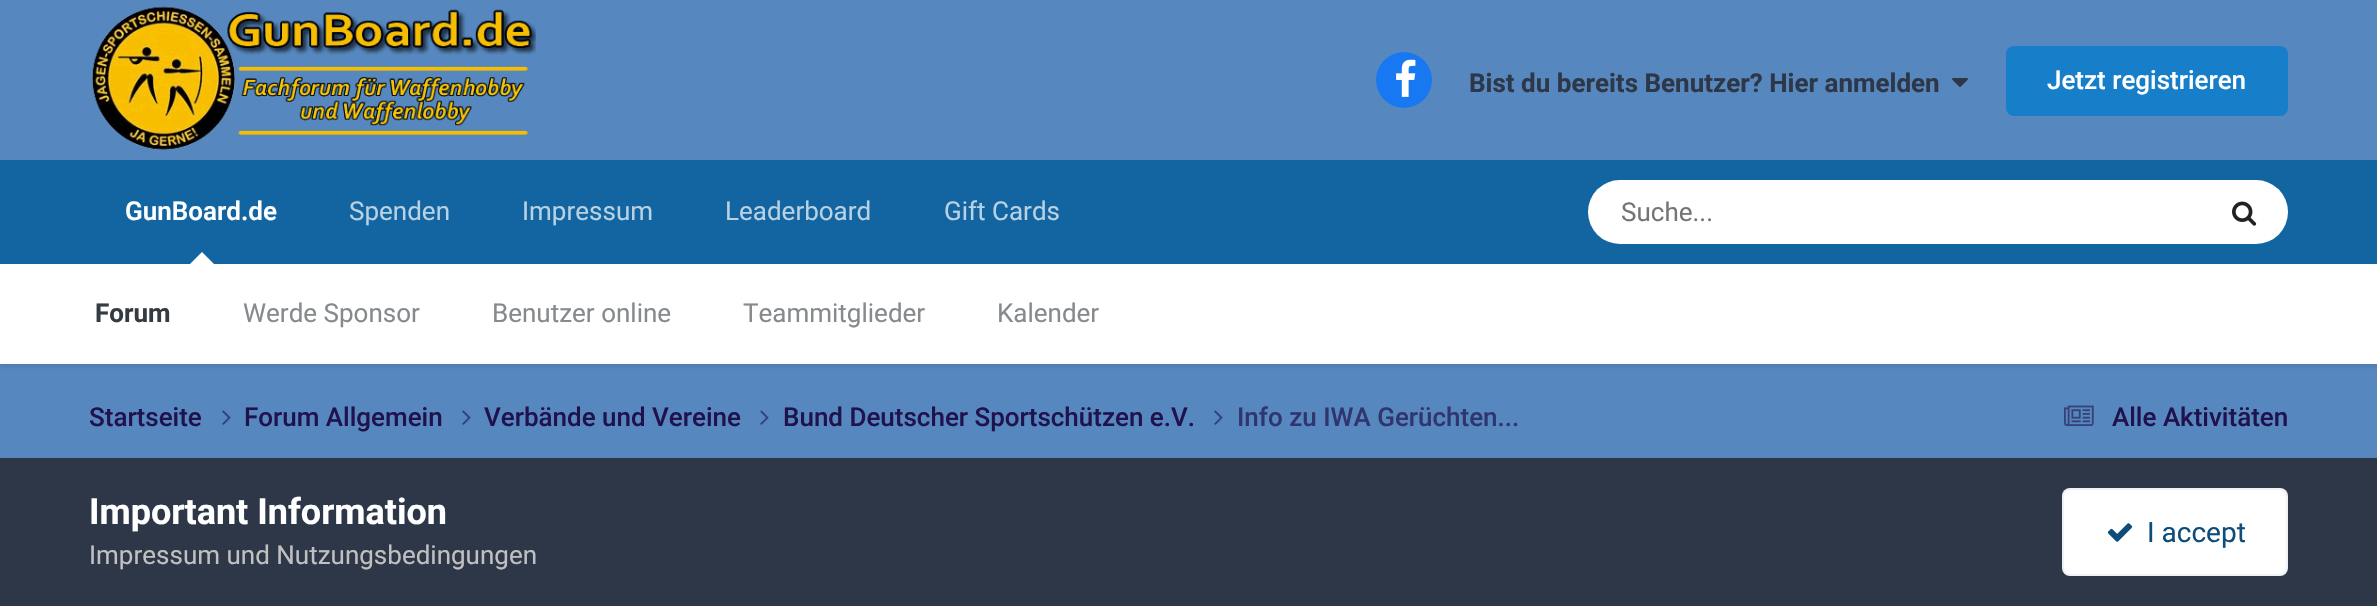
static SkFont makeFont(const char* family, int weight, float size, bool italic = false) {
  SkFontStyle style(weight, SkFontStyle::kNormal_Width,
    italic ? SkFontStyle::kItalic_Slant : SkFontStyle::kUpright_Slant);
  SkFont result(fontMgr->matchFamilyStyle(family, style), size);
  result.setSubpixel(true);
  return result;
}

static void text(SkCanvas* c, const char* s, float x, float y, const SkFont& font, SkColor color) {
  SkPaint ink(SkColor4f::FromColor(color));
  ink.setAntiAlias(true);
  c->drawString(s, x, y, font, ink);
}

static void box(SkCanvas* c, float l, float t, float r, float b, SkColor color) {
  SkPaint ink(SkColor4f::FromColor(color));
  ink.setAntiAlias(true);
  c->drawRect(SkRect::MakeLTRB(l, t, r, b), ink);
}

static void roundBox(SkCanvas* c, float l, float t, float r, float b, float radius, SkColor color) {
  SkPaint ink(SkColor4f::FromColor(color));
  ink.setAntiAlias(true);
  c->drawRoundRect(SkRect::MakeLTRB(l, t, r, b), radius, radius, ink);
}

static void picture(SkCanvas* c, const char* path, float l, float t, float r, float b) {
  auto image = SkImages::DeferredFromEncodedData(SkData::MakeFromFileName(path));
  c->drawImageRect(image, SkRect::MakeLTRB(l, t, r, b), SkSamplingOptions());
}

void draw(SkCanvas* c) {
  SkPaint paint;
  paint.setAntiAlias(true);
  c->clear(0xff5687be);
  picture(c, "img_01.png", 92, 6, 536, 150);
  paint.setColor(0xff1778f2);
  c->drawCircle(1404, 80, 28, paint);
  picture(c, "img_02.png", 1396, 59, 1416, 97);
  SkFont face1 = makeFont("Roboto", 700, 26);
  text(c, "Bist du bereits Benutzer? Hier anmelden", 1469, 92, face1, 0xff2d3748);
  picture(c, "img_03.png", 1952, 78, 1968, 87);
  roundBox(c, 2006, 46, 2288, 116, 8, 0xff177ec9);
  SkFont face2 = makeFont("Roboto", 500, 26);
  text(c, "Jetzt registrieren", 2047, 89, face2, 0xffffffff);
  box(c, 0, 160, 2377, 264, 0xff1265a1);
  SkFont face3 = makeFont("Roboto", 600, 26);
  text(c, "GunBoard.de", 125, 220, face3, 0xffffffff);
  paint.setColor(0x1a000000);
  paint.setMaskFilter(SkMaskFilter::MakeBlur(kNormal_SkBlurStyle, 2));
  c->drawRect(SkRect::MakeLTRB(0, 266, 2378, 366), paint);
  paint.setMaskFilter(nullptr);
  paint.setColor(0xffffffff);
  c->drawPath(SkPathBuilder().moveTo(214, 264).lineTo(190, 264).lineTo(202, 252).close().detach(), paint);
  box(c, 0, 264, 2377, 364, 0xffffffff);
  text(c, "Forum", 95, 322, face1, 0xff353c41);
  SkFont face4 = makeFont("Roboto", 400, 26);
  text(c, "Werde Sponsor", 243, 322, face4, 0xff868a8d);
  text(c, "Benutzer online", 492, 322, face4, 0xff868a8d);
  text(c, "Teammitglieder", 743, 322, face4, 0xff868a8d);
  text(c, "Kalender", 997, 322, face4, 0xff868a8d);
  text(c, "Spenden", 349, 220, face4, 0xffb8d1e3);
  text(c, "Impressum", 522, 220, face4, 0xffb8d1e3);
  text(c, "Leaderboard", 725, 220, face4, 0xffb8d1e3);
  text(c, "Gift Cards", 944, 220, face4, 0xffb8d1e3);
  roundBox(c, 1588, 180, 2288, 244, 32, 0xffffffff);
  text(c, "Suche...", 1621, 221, face4, 0xff757575);
  picture(c, "img_04.png", 2232, 201, 2257, 226);
  text(c, "Startseite", 89, 426, face2, 0xff20124d);
  picture(c, "img_05.png", 222, 410, 231, 425);
  text(c, "Forum Allgemein", 244, 426, face2, 0xff20124d);
  picture(c, "img_05.png", 462, 410, 471, 425);
  text(c, "Verbände und Vereine", 484, 426, face2, 0xff20124d);
  picture(c, "img_05.png", 760, 410, 769, 425);
  text(c, "Bund Deutscher Sportschützen e.V.", 783, 426, face2, 0xff20124d);
  picture(c, "img_05.png", 1214, 410, 1223, 425);
  text(c, "Info zu IWA Gerüchten...", 1237, 426, face2, 0xff30356f);
  picture(c, "img_06.png", 2064, 405, 2094, 426);
  text(c, "Alle Aktivitäten", 2112, 426, face2, 0xff20124d);
  box(c, 0, 458, 2377, 606, 0xff2d3748);
  SkFont face5 = makeFont("Roboto", 700, 36);
  text(c, "Important Information", 89, 524, face5, 0xffffffff);
  text(c, "Impressum und Nutzungsbedingungen", 89, 564, face4, 0xffc0c0c0);
  roundBox(c, 2062, 488, 2288, 576, 8, 0xffffffff);
  paint.setStyle(SkPaint::kStroke_Style);
  paint.setStrokeWidth(2);
  paint.setColor(0x120e4c79);
  c->drawRoundRect(SkRect::MakeLTRB(2063, 489, 2287, 575), 7, 7, paint);
  picture(c, "img_07.png", 2107, 523, 2133, 542);
  SkFont face6 = makeFont("Roboto", 400, 28);
  text(c, "I accept", 2147, 542, face6, 0xff0e4c79);
}
